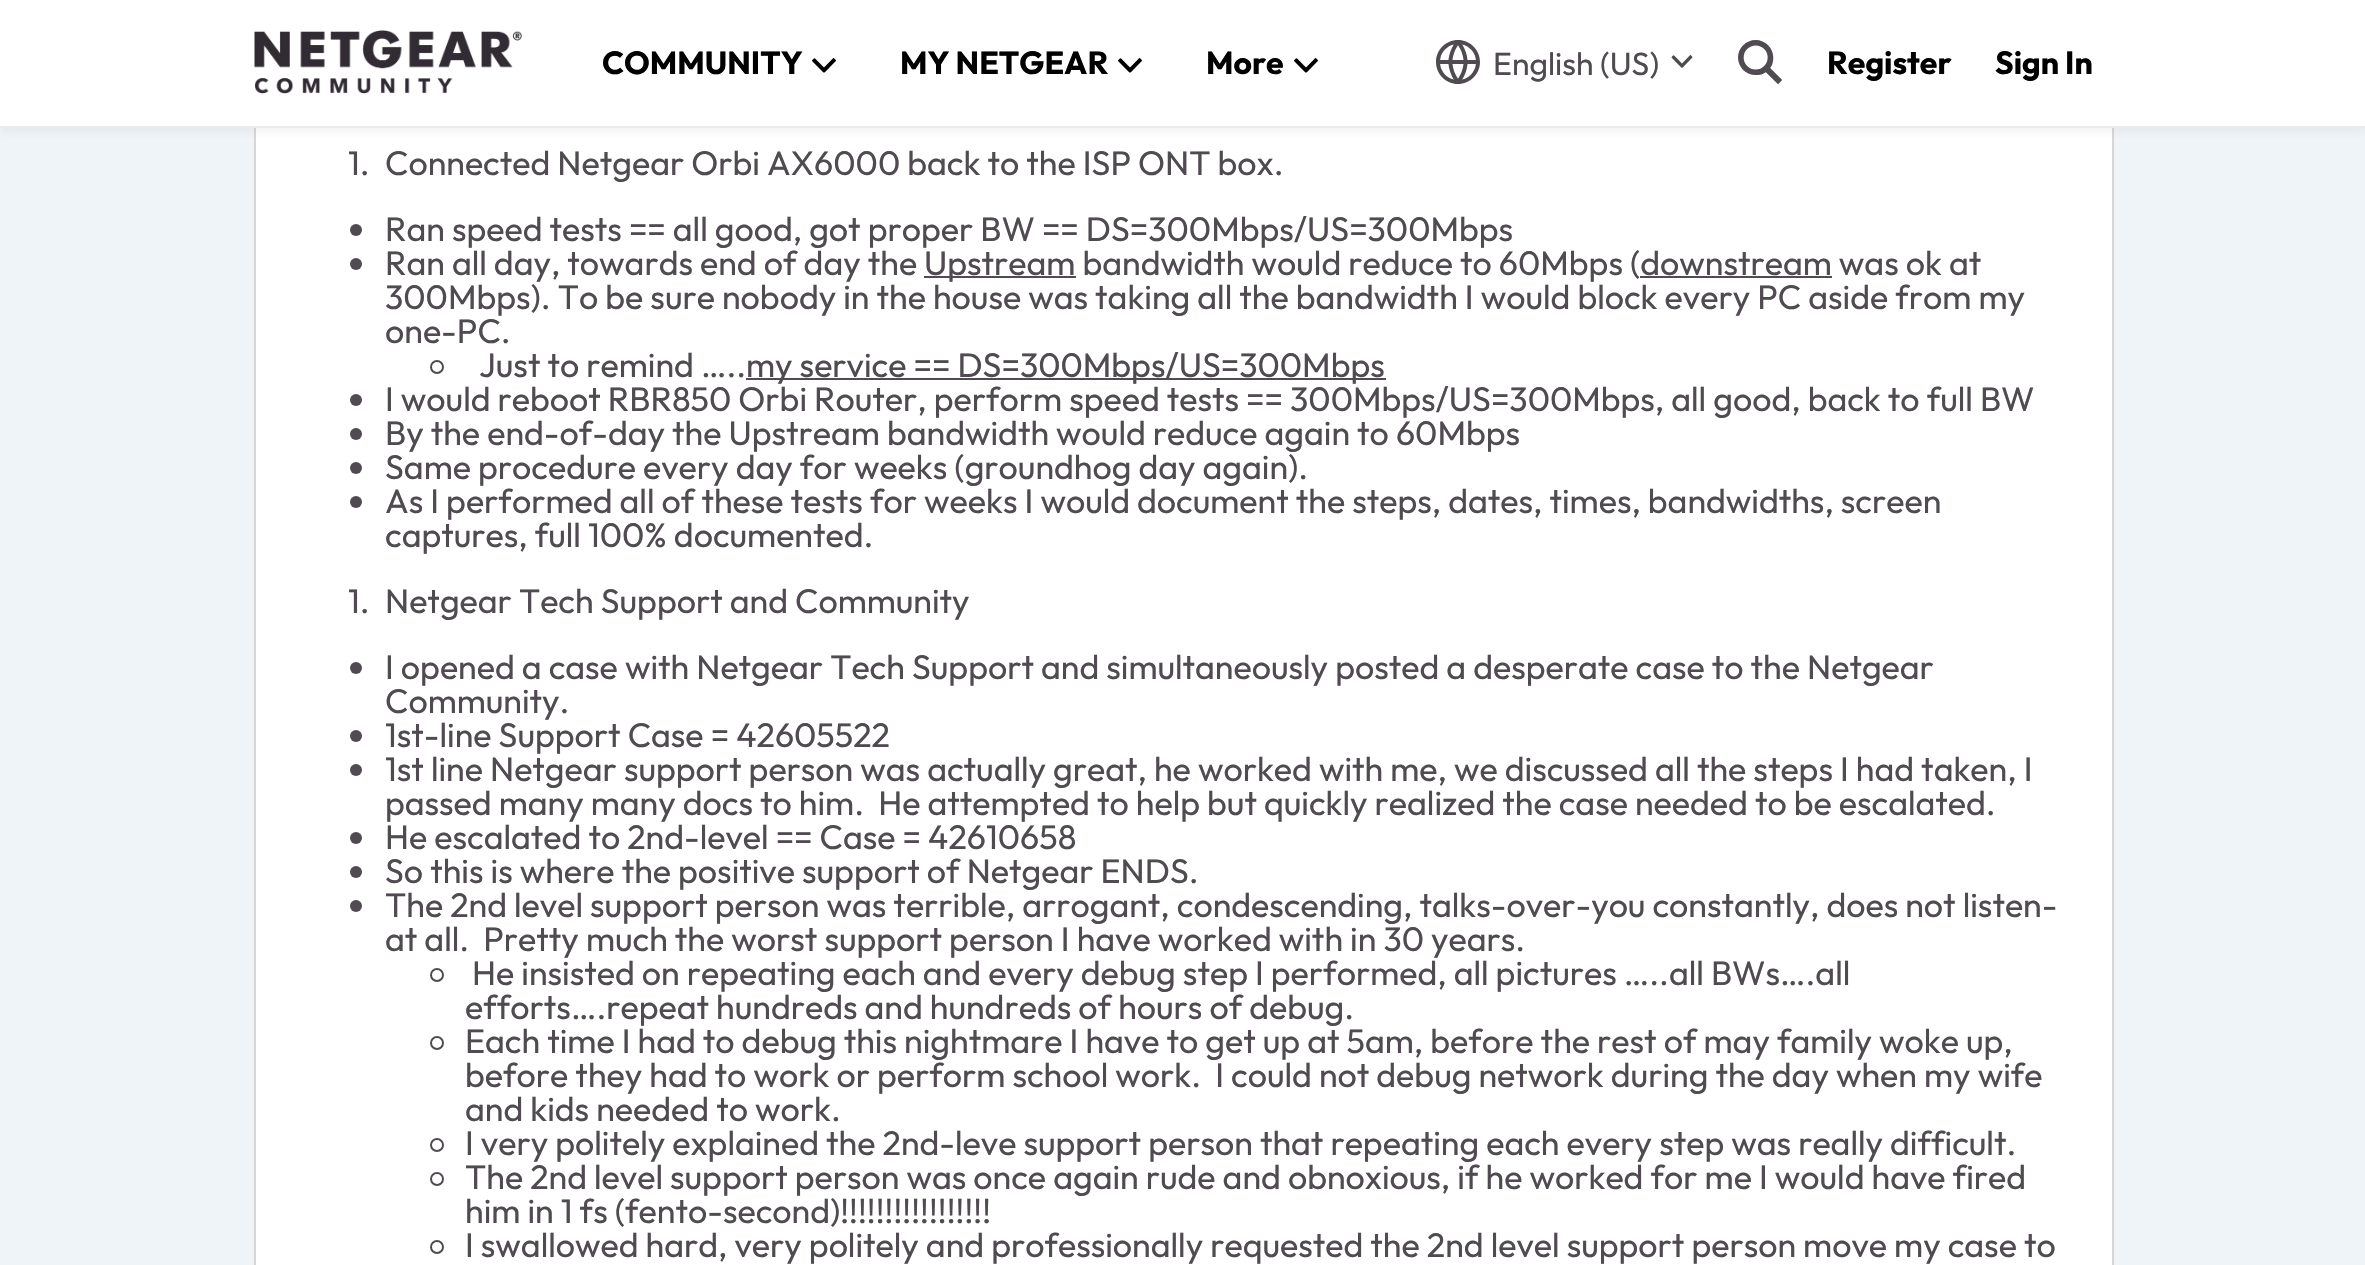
static SkFont makeFont(const char* family, int weight, float size, bool italic = false) {
  SkFontStyle style(weight, SkFontStyle::kNormal_Width,
    italic ? SkFontStyle::kItalic_Slant : SkFontStyle::kUpright_Slant);
  SkFont result(fontMgr->matchFamilyStyle(family, style), size);
  result.setSubpixel(true);
  return result;
}

static void text(SkCanvas* c, const char* s, float x, float y, const SkFont& font, SkColor color) {
  SkPaint ink(SkColor4f::FromColor(color));
  ink.setAntiAlias(true);
  c->drawString(s, x, y, font, ink);
}

static void box(SkCanvas* c, float l, float t, float r, float b, SkColor color) {
  SkPaint ink(SkColor4f::FromColor(color));
  ink.setAntiAlias(true);
  c->drawRect(SkRect::MakeLTRB(l, t, r, b), ink);
}

static void picture(SkCanvas* c, const char* path, float l, float t, float r, float b) {
  auto image = SkImages::DeferredFromEncodedData(SkData::MakeFromFileName(path));
  c->drawImageRect(image, SkRect::MakeLTRB(l, t, r, b), SkSamplingOptions());
}

void draw(SkCanvas* c) {
  SkPaint paint;
  paint.setAntiAlias(true);
  c->clear(0xffeff4f9);
  box(c, 256, 128, 2112, 1265, 0xffffffff);
  paint.setStyle(SkPaint::kStroke_Style);
  paint.setStrokeWidth(2);
  paint.setColor(0xffd6d6d6);
  c->drawRect(SkRect::MakeLTRB(255, -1, 2113, 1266), paint);
  paint.setStyle(SkPaint::kFill_Style);
  paint.setColor(0x0f333333);
  paint.setMaskFilter(SkMaskFilter::MakeBlur(kNormal_SkBlurStyle, 4));
  c->drawRect(SkRect::MakeLTRB(0, 4, 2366, 132), paint);
  paint.setMaskFilter(nullptr);
  box(c, 0, 0, 2365, 126, 0xffffffff);
  box(c, 0, 126, 2365, 128, 0xffebebeb);
  picture(c, "img_01.png", 254, 30, 522, 94);
  SkFont face1 = makeFont("Outfit", 700, 32);
  text(c, "COMMUNITY", 602, 74, face1, 0xff000000);
  picture(c, "img_02.png", 812, 58, 836, 73);
  text(c, "MY NETGEAR", 900, 74, face1, 0xff000000);
  picture(c, "img_02.png", 1118, 58, 1142, 73);
  text(c, "More", 1206, 74, face1, 0xff000000);
  picture(c, "img_02.png", 1294, 58, 1318, 73);
  picture(c, "img_03.png", 1436, 40, 1480, 84);
  SkFont face2 = makeFont("Outfit", 400, 32);
  text(c, "English (US)", 1493, 75, face2, 0xff504b51);
  picture(c, "img_04.png", 1671, 55, 1693, 68);
  picture(c, "img_05.png", 1738, 40, 1782, 85);
  text(c, "Register", 1827, 74, face1, 0xff000000);
  text(c, "Sign In", 1995, 74, face1, 0xff000000);
  SkFont face3 = makeFont("Outfit", 400, 34);
  text(c, "1.", 348, 175, face3, 0xff504b51);
  text(c, "Connected Netgear Orbi AX6000 back to the ISP ONT box.", 385, 175, face3, 0xff504b51);
  paint.setColor(0xff504b51);
  c->drawCircle(356, 230, 6, paint);
  text(c, "Ran speed tests == all good, got proper BW == DS=300Mbps/US=300Mbps", 385, 241, face3, 0xff504b51);
  c->drawCircle(356, 264, 6, paint);
  text(c, "Ran all day, towards end of day the", 385, 275, face3, 0xff504b51);
  box(c, 924, 276, 1076, 278, 0xff504b51);
  text(c, "Upstream bandwidth would reduce to 60Mbps (downstream was ok at", 924, 275, face3, 0xff504b51);
  box(c, 1640, 276, 1832, 278, 0xff504b51);
  text(c, "300Mbps). To be sure nobody in the house was taking all the bandwidth I would block every PC aside from my", 385, 309, face3, 0xff504b51);
  text(c, "one-PC.", 385, 343, face3, 0xff504b51);
  paint.setStyle(SkPaint::kStroke_Style);
  c->drawCircle(437, 367, 6, paint);
  text(c, "Just to remind …..", 479, 377, face3, 0xff504b51);
  box(c, 746, 378, 1386, 380, 0xff504b51);
  text(c, "my service == DS=300Mbps/US=300Mbps", 746, 377, face3, 0xff504b51);
  paint.setStyle(SkPaint::kFill_Style);
  c->drawCircle(356, 400, 6, paint);
  text(c, "I would reboot RBR850 Orbi Router, perform speed tests == 300Mbps/US=300Mbps, all good, back to full BW", 385, 411, face3, 0xff504b51);
  c->drawCircle(356, 434, 6, paint);
  text(c, "By the end-of-day the Upstream bandwidth would reduce again to 60Mbps", 385, 445, face3, 0xff504b51);
  c->drawCircle(356, 468, 6, paint);
  text(c, "Same procedure every day for weeks (groundhog day again).", 385, 479, face3, 0xff504b51);
  c->drawCircle(356, 502, 6, paint);
  text(c, "As I performed all of these tests for weeks I would document the steps, dates, times, bandwidths, screen", 385, 513, face3, 0xff504b51);
  text(c, "captures, full 100% documented.", 385, 547, face3, 0xff504b51);
  text(c, "1.", 348, 613, face3, 0xff504b51);
  text(c, "Netgear Tech Support and Community", 385, 613, face3, 0xff504b51);
  c->drawCircle(356, 668, 6, paint);
  text(c, "I opened a case with Netgear Tech Support and simultaneously posted a desperate case to the Netgear", 385, 679, face3, 0xff504b51);
  text(c, "Community.", 385, 713, face3, 0xff504b51);
  c->drawCircle(356, 736, 6, paint);
  text(c, "1st-line Support Case = 42605522", 385, 747, face3, 0xff504b51);
  c->drawCircle(356, 770, 6, paint);
  text(c, "1st line Netgear support person was actually great, he worked with me, we discussed all the steps I had taken, I", 385, 781, face3, 0xff504b51);
  text(c, "passed many many docs to him.  He attempted to help but quickly realized the case needed to be escalated.", 385, 815, face3, 0xff504b51);
  c->drawCircle(356, 838, 6, paint);
  text(c, "He escalated to 2nd-level == Case = 42610658", 385, 849, face3, 0xff504b51);
  c->drawCircle(356, 872, 6, paint);
  text(c, "So this is where the positive support of Netgear ENDS.", 385, 883, face3, 0xff504b51);
  c->drawCircle(356, 906, 6, paint);
  text(c, "The 2nd level support person was terrible, arrogant, condescending, talks-over-you constantly, does not listen-", 385, 917, face3, 0xff504b51);
  text(c, "at all.  Pretty much the worst support person I have worked with in 30 years.", 385, 951, face3, 0xff504b51);
  paint.setStyle(SkPaint::kStroke_Style);
  c->drawCircle(437, 975, 6, paint);
  text(c, "He insisted on repeating each and every debug step I performed, all pictures …..all BWs….all", 472, 985, face3, 0xff504b51);
  text(c, "efforts….repeat hundreds and hundreds of hours of debug.", 465, 1019, face3, 0xff504b51);
  c->drawCircle(437, 1043, 6, paint);
  text(c, "Each time I had to debug this nightmare I have to get up at 5am, before the rest of may family woke up,", 465, 1053, face3, 0xff504b51);
  text(c, "before they had to work or perform school work.  I could not debug network during the day when my wife", 465, 1087, face3, 0xff504b51);
  text(c, "and kids needed to work.", 465, 1121, face3, 0xff504b51);
  c->drawCircle(437, 1145, 6, paint);
  text(c, "I very politely explained the 2nd-leve support person that repeating each every step was really difficult.", 465, 1155, face3, 0xff504b51);
  c->drawCircle(437, 1179, 6, paint);
  text(c, "The 2nd level support person was once again rude and obnoxious, if he worked for me I would have fired", 465, 1189, face3, 0xff504b51);
  text(c, "him in 1 fs (fento-second)!!!!!!!!!!!!!!!!!", 465, 1223, face3, 0xff504b51);
  c->drawCircle(437, 1247, 6, paint);
  text(c, "I swallowed hard, very politely and professionally requested the 2nd level support person move my case to", 465, 1257, face3, 0xff504b51);
}
